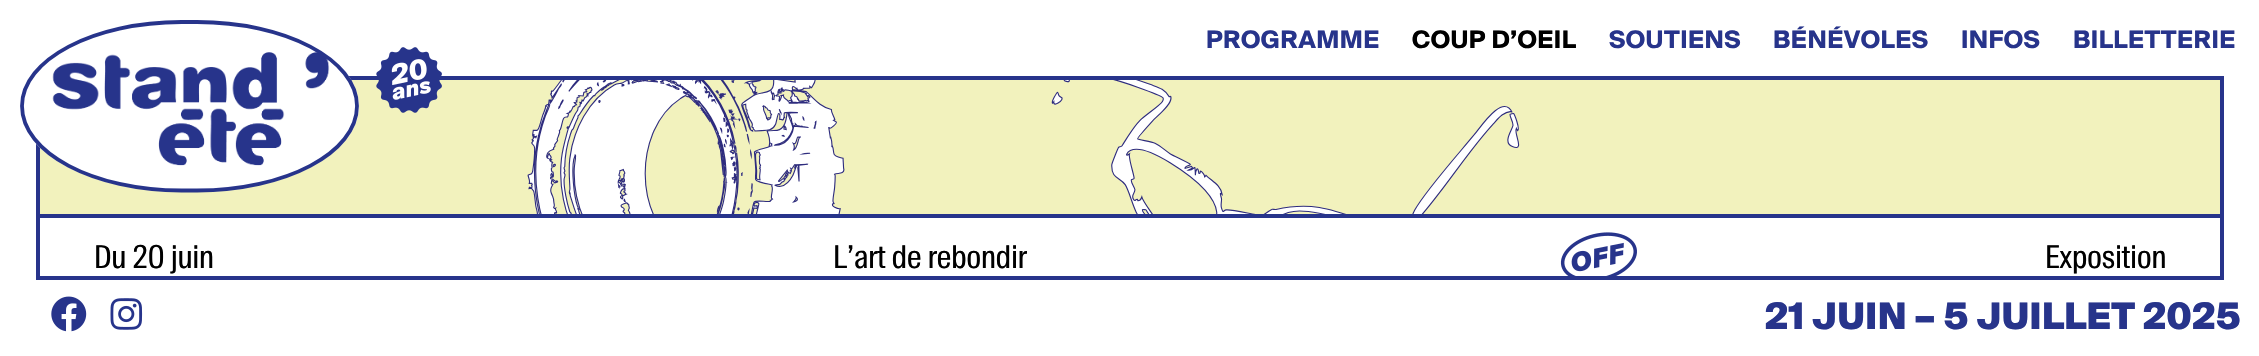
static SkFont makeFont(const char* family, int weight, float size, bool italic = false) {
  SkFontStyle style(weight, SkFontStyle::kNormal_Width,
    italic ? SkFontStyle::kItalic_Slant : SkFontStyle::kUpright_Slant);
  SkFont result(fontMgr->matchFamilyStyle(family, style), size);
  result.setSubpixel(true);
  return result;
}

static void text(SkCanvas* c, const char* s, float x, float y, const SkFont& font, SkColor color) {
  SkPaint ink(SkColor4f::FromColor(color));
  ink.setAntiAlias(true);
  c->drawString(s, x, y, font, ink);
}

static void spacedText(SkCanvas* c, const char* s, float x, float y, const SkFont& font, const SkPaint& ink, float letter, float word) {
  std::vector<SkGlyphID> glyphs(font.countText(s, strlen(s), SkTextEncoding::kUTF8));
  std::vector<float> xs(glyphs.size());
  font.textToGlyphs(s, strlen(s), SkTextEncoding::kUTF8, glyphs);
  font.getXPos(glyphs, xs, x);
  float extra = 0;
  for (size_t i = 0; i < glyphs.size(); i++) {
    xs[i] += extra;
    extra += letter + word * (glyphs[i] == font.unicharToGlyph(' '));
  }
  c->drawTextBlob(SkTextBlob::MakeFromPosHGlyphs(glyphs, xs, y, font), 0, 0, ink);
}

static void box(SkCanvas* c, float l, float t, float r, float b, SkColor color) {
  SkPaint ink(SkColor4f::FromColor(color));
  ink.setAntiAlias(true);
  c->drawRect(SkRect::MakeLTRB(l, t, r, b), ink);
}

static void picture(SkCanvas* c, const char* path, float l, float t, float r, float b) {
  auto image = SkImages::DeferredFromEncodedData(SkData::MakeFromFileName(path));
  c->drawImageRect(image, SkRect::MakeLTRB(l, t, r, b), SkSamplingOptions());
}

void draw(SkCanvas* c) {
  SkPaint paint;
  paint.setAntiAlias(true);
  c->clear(0xfff2f2bd);
  box(c, 40, 218, 2220, 276, 0xffffffff);
  paint.setStyle(SkPaint::kStroke_Style);
  paint.setStrokeWidth(4);
  paint.setColor(0xff27348b);
  c->drawRect(SkRect::MakeLTRB(2, 216, 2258, 342), paint);
  box(c, 0, 0, 36, 356, 0xffffffff);
  box(c, 36, 0, 2224, 76, 0xffffffff);
  box(c, 36, 143, 40, 280, 0xff27348b);
  box(c, 348, 76, 2220, 80, 0xff27348b);
  paint.setStyle(SkPaint::kFill_Style);
  paint.setColor(0xffffffff);
  c->drawPath(SkPathBuilder().moveTo(182, 20).lineTo(197, 20).cubicTo(286, 20, 359, 59, 359, 106).cubicTo(359, 154, 286, 192, 197, 192).lineTo(182, 192).cubicTo(92, 192, 20, 154, 20, 106).cubicTo(20, 59, 92, 20, 182, 20).close().detach(), paint);
  paint.setStyle(SkPaint::kStroke_Style);
  paint.setStrokeWidth(3.8f);
  paint.setColor(0xff27348b);
  c->drawPath(SkPathBuilder().moveTo(181.5f, 22).lineTo(197, 22).cubicTo(285.5f, 22, 357, 59.5f, 357, 106).cubicTo(357, 153, 285.5f, 190.5f, 197, 190.5f).lineTo(181.5f, 190.5f).cubicTo(93.5f, 190.5f, 22, 153, 22, 106).cubicTo(22, 59.5f, 93.5f, 22, 181.5f, 22).close().detach(), paint);
  picture(c, "img_01.png", 52, 52, 330, 166);
  SkFont face1 = makeFont("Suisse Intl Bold", 700, 24.25f);
  paint.setStyle(SkPaint::kFill_Style);
  spacedText(c, "PROGRAMME", 1206, 48, face1, paint, 0.5f, 0);
  paint.setColor(0xff000000);
  spacedText(c, "COUP D’OEIL", 1412, 48, face1, paint, 0.5f, 0);
  paint.setColor(0xff27348b);
  spacedText(c, "SOUTIENS", 1609, 48, face1, paint, 0.5f, 0);
  spacedText(c, "BÉNÉVOLES", 1773, 48, face1, paint, 0.5f, 0);
  spacedText(c, "INFOS", 1961, 48, face1, paint, 0.5f, 0);
  box(c, 2224, 0, 2259, 280, 0xffffffff);
  spacedText(c, "BILLETTERIE", 2073, 48, face1, paint, 0.5f, 0);
  picture(c, "img_02.png", 376, 47, 442, 113);
  box(c, 2220, 76, 2224, 276, 0xff27348b);
  box(c, 40, 276, 2224, 280, 0xff27348b);
  box(c, 36, 280, 2259, 356, 0xffffffff);
  picture(c, "img_03.png", 527, 80, 1520, 214);
  SkFont face2 = makeFont("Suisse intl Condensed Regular", 400, 31.5f);
  text(c, "Du 20 juin", 94, 268, face2, 0xff000000);
  text(c, "L’art de rebondir", 833, 268, face2, 0xff000000);
  picture(c, "img_04.png", 1560, 232, 1637, 276);
  text(c, "Exposition", 2045, 268, face2, 0xff000000);
  picture(c, "img_05.png", 51, 296, 87, 332);
  picture(c, "img_06.png", 110, 298, 143, 330);
  SkFont face3 = makeFont("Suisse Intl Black", 900, 36.5f);
  text(c, "21 JUIN – 5 JUILLET 2025", 1765, 329, face3, 0xff27348b);
}
